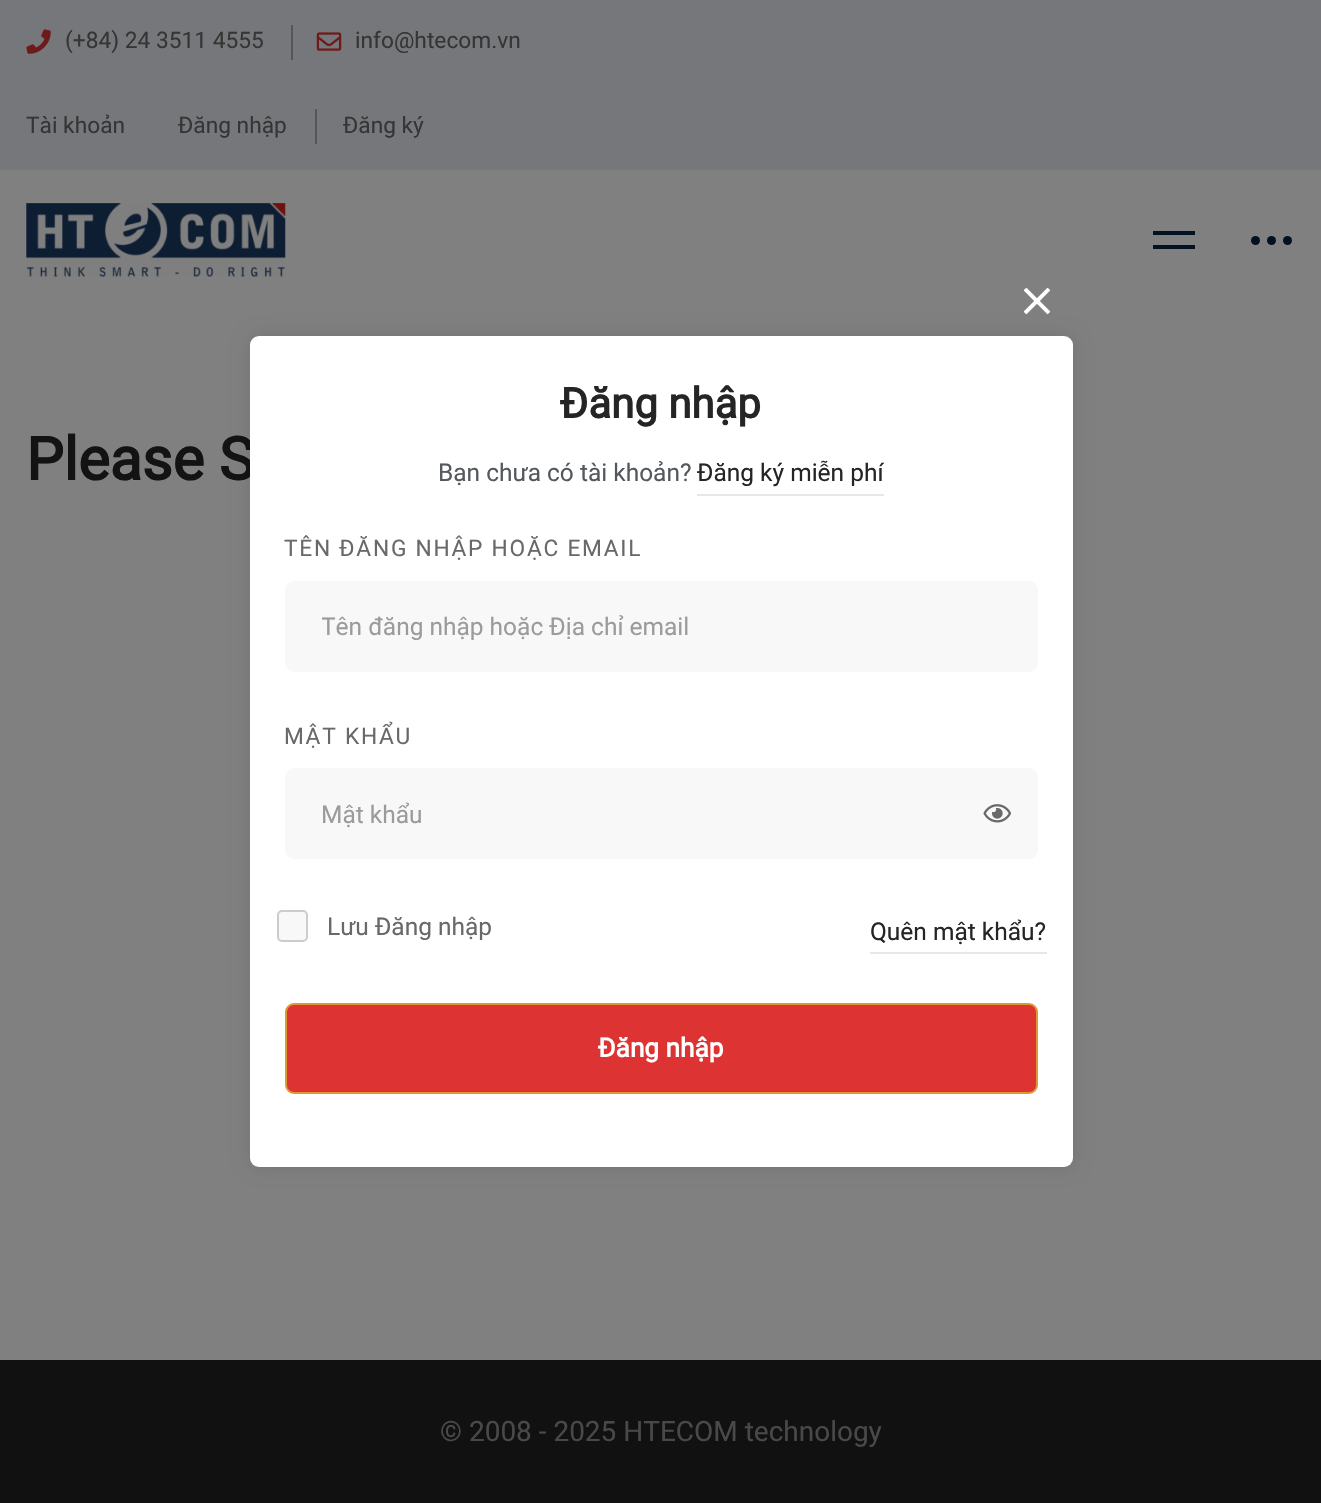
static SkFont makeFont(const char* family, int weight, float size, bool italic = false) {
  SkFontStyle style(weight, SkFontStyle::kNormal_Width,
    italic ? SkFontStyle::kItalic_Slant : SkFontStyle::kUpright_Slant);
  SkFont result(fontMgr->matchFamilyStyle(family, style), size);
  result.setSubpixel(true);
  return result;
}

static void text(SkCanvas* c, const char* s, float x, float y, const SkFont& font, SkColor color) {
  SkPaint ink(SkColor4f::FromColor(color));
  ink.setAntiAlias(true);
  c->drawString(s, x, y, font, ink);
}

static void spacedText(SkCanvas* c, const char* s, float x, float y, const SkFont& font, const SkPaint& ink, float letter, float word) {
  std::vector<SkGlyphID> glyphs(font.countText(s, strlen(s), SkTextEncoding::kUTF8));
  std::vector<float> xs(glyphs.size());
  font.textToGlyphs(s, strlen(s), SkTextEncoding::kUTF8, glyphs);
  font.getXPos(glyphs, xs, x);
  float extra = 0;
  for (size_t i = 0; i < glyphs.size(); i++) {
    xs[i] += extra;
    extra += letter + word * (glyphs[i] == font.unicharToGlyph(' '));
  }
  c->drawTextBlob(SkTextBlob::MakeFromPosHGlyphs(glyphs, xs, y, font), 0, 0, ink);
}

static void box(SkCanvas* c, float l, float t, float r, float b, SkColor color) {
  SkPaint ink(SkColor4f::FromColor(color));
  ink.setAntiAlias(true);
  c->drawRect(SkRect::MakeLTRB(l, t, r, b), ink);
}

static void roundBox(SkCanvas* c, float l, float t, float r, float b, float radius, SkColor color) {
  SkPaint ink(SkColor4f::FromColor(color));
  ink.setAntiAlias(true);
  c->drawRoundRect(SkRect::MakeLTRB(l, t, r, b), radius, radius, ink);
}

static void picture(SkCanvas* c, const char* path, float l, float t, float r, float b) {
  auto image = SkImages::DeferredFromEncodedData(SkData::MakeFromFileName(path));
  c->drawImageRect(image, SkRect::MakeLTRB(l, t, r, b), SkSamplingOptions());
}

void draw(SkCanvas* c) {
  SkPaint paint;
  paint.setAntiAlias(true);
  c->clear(0xff808080);
  box(c, 0, 0, 1321, 168, 0xff76777b);
  box(c, 0, 168, 1321, 170, 0xff777777);
  picture(c, "img_01.png", 26, 29, 51, 54);
  SkFont face1 = makeFont("Roboto", 400, 22.75f);
  text(c, "(+84) 24 3511 4555", 65, 48, face1, 0xff353535);
  box(c, 291, 25, 293, 60, 0xff555659);
  picture(c, "img_02.png", 316, 32, 342, 51);
  text(c, "info@htecom.vn", 355, 48, face1, 0xff353535);
  text(c, "Tài khoản", 26, 133, face1, 0xff353535);
  text(c, "Đăng nhập", 178, 133, face1, 0xff353535);
  box(c, 315, 109, 317, 144, 0xff555659);
  text(c, "Đăng ký", 343, 133, face1, 0xff353535);
  picture(c, "img_03.png", 26, 203, 286, 277);
  box(c, 1153, 231, 1195, 235, 0xff031122);
  box(c, 1153, 245, 1195, 249, 0xff031122);
  paint.setColor(0xff021021);
  c->drawCircle(1255.5f, 240.5f, 4.5f, paint);
  c->drawCircle(1271.5f, 240.5f, 4.5f, paint);
  c->drawCircle(1287.5f, 240.5f, 4.5f, paint);
  SkFont face2 = makeFont("Roboto", 700, 59.5f);
  text(c, "Please S", 26, 480, face2, 0xff131313);
  box(c, 0, 1360, 1321, 1503, 0xff111111);
  SkFont face3 = makeFont("Roboto", 400, 28);
  text(c, "© 2008 - 2025 HTECOM technology", 440, 1441, face3, 0xff494949);
  paint.setColor(0x1a000000);
  paint.setMaskFilter(SkMaskFilter::MakeBlur(kNormal_SkBlurStyle, 9));
  c->drawRoundRect(SkRect::MakeLTRB(250, 336, 1073, 1167), 9, 9, paint);
  paint.setMaskFilter(nullptr);
  picture(c, "img_04.png", 1023, 287, 1051, 315);
  roundBox(c, 250, 336, 1073, 1167, 9, 0xffffffff);
  SkFont face4 = makeFont("Roboto", 700, 42);
  text(c, "Đăng nhập", 560, 418, face4, 0xff252525);
  SkFont face5 = makeFont("Roboto", 400, 24.5f);
  text(c, "Bạn chưa có tài khoản?", 438, 481, face5, 0xff54595f);
  text(c, "Đăng ký miễn phí", 697, 481, face5, 0xff252525);
  box(c, 697, 494, 884, 496, 0xffe7e7e7);
  paint.setColor(0xff696969);
  spacedText(c, "TÊN ĐĂNG NHẬP HOẶC EMAIL", 284, 556, face1, paint, 1.75f, 0);
  roundBox(c, 285, 581, 1038, 672, 9, 0xfff8f8f8);
  c->save();
  c->clipRect(SkRect::MakeLTRB(322, 613, 1001, 641));
  text(c, "Tên đăng nhập hoặc Địa chỉ email", 321, 635, face5, 0xff9b9b9b);
  c->restore();
  spacedText(c, "MẬT KHẨU", 284, 744, face1, paint, 1.75f, 0);
  roundBox(c, 285, 768, 1038, 859, 9, 0xfff8f8f8);
  text(c, "Mật khẩu", 321, 823, face5, 0xff9b9b9b);
  picture(c, "img_05.png", 983, 804, 1011, 823);
  paint.setColor(0xfff8f8f8);
  c->drawRoundRect(SkRect::MakeLTRB(278, 911, 307, 941), 4, 4, paint);
  paint.setStyle(SkPaint::kStroke_Style);
  paint.setStrokeWidth(2);
  paint.setColor(0xffcccccc);
  c->drawRoundRect(SkRect::MakeLTRB(278, 911, 307, 941), 4, 4, paint);
  text(c, "Lưu Đăng nhập", 327, 935, face5, 0xff696969);
  text(c, "Quên mật khẩu?", 870, 940, face5, 0xff252525);
  box(c, 870, 952, 1047, 954, 0xffe7e7e7);
  paint.setStyle(SkPaint::kFill_Style);
  paint.setColor(0xffdd3333);
  c->drawRoundRect(SkRect::MakeLTRB(286, 1004, 1037, 1093), 8, 8, paint);
  paint.setStyle(SkPaint::kStroke_Style);
  paint.setColor(0xffdd9933);
  c->drawRoundRect(SkRect::MakeLTRB(286, 1004, 1037, 1093), 8, 8, paint);
  SkFont face6 = makeFont("Roboto", 700, 26.25f);
  text(c, "Đăng nhập", 598, 1057, face6, 0xffffffff);
}
